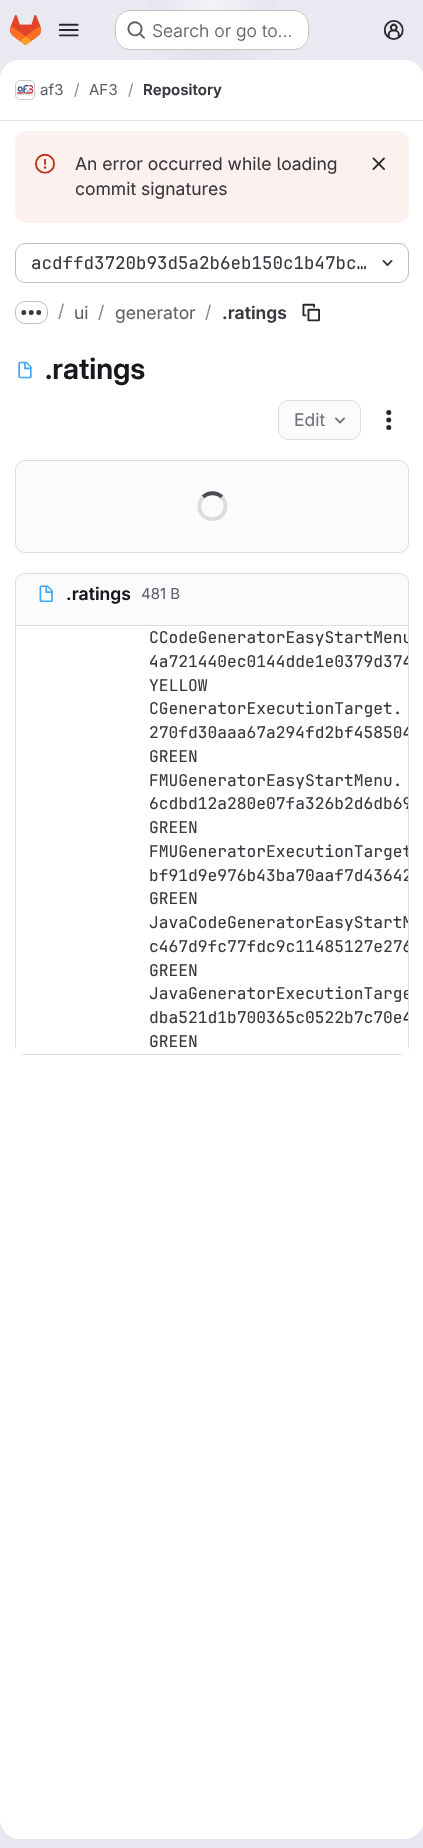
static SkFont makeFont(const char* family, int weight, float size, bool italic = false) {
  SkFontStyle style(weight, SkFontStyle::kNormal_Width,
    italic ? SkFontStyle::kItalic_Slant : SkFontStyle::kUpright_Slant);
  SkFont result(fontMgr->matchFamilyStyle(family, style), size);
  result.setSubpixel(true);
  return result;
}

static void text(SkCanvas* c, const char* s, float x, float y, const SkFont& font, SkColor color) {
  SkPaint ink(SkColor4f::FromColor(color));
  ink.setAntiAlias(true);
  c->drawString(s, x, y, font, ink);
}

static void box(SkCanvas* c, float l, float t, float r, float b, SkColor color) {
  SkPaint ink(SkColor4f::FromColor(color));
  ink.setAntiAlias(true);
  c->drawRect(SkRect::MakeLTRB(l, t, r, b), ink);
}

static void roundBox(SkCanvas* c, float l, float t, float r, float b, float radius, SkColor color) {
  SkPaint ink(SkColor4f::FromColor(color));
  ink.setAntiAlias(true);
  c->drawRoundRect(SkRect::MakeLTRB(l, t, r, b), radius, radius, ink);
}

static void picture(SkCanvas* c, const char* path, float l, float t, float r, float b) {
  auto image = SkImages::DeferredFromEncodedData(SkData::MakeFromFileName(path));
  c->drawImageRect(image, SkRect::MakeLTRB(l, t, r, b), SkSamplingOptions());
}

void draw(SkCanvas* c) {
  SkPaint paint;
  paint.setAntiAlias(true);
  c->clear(0xffffffff);
  {
    const SkColor colors[] = {0xffe8e6f0, 0xffeae9f2};
    const float stops[] = {0, 0.7f};
    const SkPoint ends[] = {{376, 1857}, {47, -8}};
    paint.setShader(SkGradientShader::MakeLinear(ends, colors, stops, 2, SkTileMode::kClamp));
    paint.setAlpha(255);
  }
  c->drawRect(SkRect::MakeLTRB(0, 0, 423, 1848), paint);
  {
    const SkColor colors[] = {0xffe4e2ed, 0x00e4e2ed};
    const float stops[] = {0, 0.41f};
    SkMatrix m = SkMatrix::Translate(212, 0).preScale(212, 1849);
    paint.setShader(SkGradientShader::MakeRadial({0, 0}, 1, colors, stops, 2, SkTileMode::kClamp, 0, &m));
    paint.setAlpha(255);
  }
  c->drawRect(SkRect::MakeLTRB(149, 0, 275, 60), paint);
  {
    const SkColor colors[] = {0xffe4e2ec, 0x00e4e2ec};
    const float stops[] = {0, 0.29f};
    SkMatrix m = SkMatrix::Translate(212, 0).preScale(212, 1849);
    paint.setShader(SkGradientShader::MakeRadial({0, 0}, 1, colors, stops, 2, SkTileMode::kClamp, 0, &m));
    paint.setAlpha(255);
  }
  c->drawRect(SkRect::MakeLTRB(187, 6, 237, 60), paint);
  {
    const SkColor colors[] = {0x99ffffff, 0x00ffffff};
    const float stops[] = {0, 0.03f};
    paint.setShader(SkGradientShader::MakeRadial({212, 0}, 1861, colors, stops, 2, SkTileMode::kClamp));
    paint.setAlpha(255);
  }
  c->drawRect(SkRect::MakeLTRB(165, 0, 259, 10), paint);
  picture(c, "img_01.png", 10, 15, 41, 45);
  picture(c, "img_02.png", 58, 23, 79, 37);
  roundBox(c, 115, 10, 309, 50, 15, 0xffffffff);
  paint.setStyle(SkPaint::kStroke_Style);
  paint.setStrokeWidth(1);
  paint.setShader(nullptr);
  paint.setColor(0x3d050506);
  c->drawRoundRect(SkRect::MakeLTRB(115.5f, 10.5f, 308.5f, 49.5f), 14.5f, 14.5f, paint);
  picture(c, "img_03.png", 127, 21, 145, 39);
  SkFont face1 = makeFont("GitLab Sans", 300, 17.5f);
  text(c, "Search or go to…", 152, 37, face1, 0xff626168);
  picture(c, "img_04.png", 383, 20, 404, 40);
  roundBox(c, 0, 60, 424, 1839, 20, 0xffffffff);
  paint.setStyle(SkPaint::kFill_Style);
  paint.setColor(0xffffffff);
  c->drawPath(SkPathBuilder().moveTo(20, 60).lineTo(404, 60).cubicTo(415, 60, 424, 69, 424, 80).lineTo(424, 121).lineTo(0, 121).lineTo(0, 80).cubicTo(0, 69, 9, 60, 20, 60).close().detach(), paint);
  box(c, 0, 120, 423, 121, 0xffe1dfec);
  paint.setStyle(SkPaint::kStroke_Style);
  paint.setColor(0xffdcdcde);
  c->drawRoundRect(SkRect::MakeLTRB(15.5f, 80.5f, 34.5f, 99.5f), 4.5f, 4.5f, paint);
  picture(c, "img_05.png", 16, 81, 34, 99);
  paint.setColor(0x14050506);
  c->drawRoundRect(SkRect::MakeLTRB(15.5f, 80.5f, 34.5f, 99.5f), 4.5f, 4.5f, paint);
  SkFont face2 = makeFont("GitLab Sans", 400, 15);
  text(c, "af3", 40, 95, face2, 0xff626168);
  text(c, "/", 74, 95, face2, 0xff89888d);
  text(c, "AF3", 89, 95, face2, 0xff626168);
  text(c, "/", 128, 95, face2, 0xff89888d);
  SkFont face3 = makeFont("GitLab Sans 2", 600, 15);
  text(c, "Repository", 143, 95, face3, 0xff3a383f);
  roundBox(c, 15, 131, 409, 223, 10, 0xfffcf1ef);
  picture(c, "img_06.png", 35, 153, 55, 174);
  SkFont face4 = makeFont("GitLab Sans", 400, 17.5f);
  text(c, "An error occurred while loading", 75, 170, face4, 0xff3a383f);
  text(c, "commit signatures", 75, 195, face4, 0xff3a383f);
  picture(c, "img_07.png", 372, 157, 385, 170);
  paint.setColor(0xffbfbfc3);
  c->drawRoundRect(SkRect::MakeLTRB(15.5f, 243.5f, 408.5f, 282.5f), 9.5f, 9.5f, paint);
  SkFont face5 = makeFont("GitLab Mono", 400, 17.5f);
  text(c, "acdffd3720b93d5a2b6eb150c1b47bc…", 31, 269, face5, 0xff3a383f);
  picture(c, "img_08.png", 382, 260, 393, 266);
  c->drawRoundRect(SkRect::MakeLTRB(15.5f, 301.5f, 47.5f, 323.5f), 9.5f, 9.5f, paint);
  picture(c, "img_09.png", 21, 310, 42, 315);
  text(c, "/", 58, 317, face4, 0xff89888d);
  text(c, "ui", 74, 319, face4, 0xff626168);
  text(c, "/", 98, 318, face4, 0xff89888d);
  text(c, "generator", 115, 319, face4, 0xff626168);
  text(c, "/", 205, 318, face4, 0xff89888d);
  SkFont face6 = makeFont("GitLab Sans 2", 600, 17.5f);
  text(c, ".ratings", 222, 319, face6, 0xff3a383f);
  picture(c, "img_10.png", 302, 303, 320, 322);
  picture(c, "img_11.png", 18, 361, 32, 379);
  SkFont face7 = makeFont("GitLab Sans", 600, 29);
  text(c, ".ratings", 45, 379, face7, 0xff18171d);
  paint.setStyle(SkPaint::kFill_Style);
  paint.setColor(0xfffbfafd);
  c->drawRoundRect(SkRect::MakeLTRB(278.5f, 400.5f, 360.5f, 439.5f), 9.5f, 9.5f, paint);
  paint.setStyle(SkPaint::kStroke_Style);
  paint.setColor(0xffdcdcde);
  c->drawRoundRect(SkRect::MakeLTRB(278.5f, 400.5f, 360.5f, 439.5f), 9.5f, 9.5f, paint);
  text(c, "Edit", 294, 426, face4, 0xff737278);
  picture(c, "img_12.png", 335, 417, 345, 424);
  picture(c, "img_13.png", 386, 410, 392, 430);
  paint.setStyle(SkPaint::kFill_Style);
  paint.setColor(0xfffbfafd);
  c->drawRoundRect(SkRect::MakeLTRB(15.5f, 460.5f, 408.5f, 552.5f), 9.5f, 9.5f, paint);
  paint.setStyle(SkPaint::kStroke_Style);
  paint.setColor(0xffdcdcde);
  c->drawRoundRect(SkRect::MakeLTRB(15.5f, 460.5f, 408.5f, 552.5f), 9.5f, 9.5f, paint);
  paint.setStrokeWidth(3.8f);
  paint.setColor(0xff4c4b51);
  c->drawPath(SkPathBuilder().moveTo(203, 497).cubicTo(208.5f, 492, 216.5f, 492, 222, 497).detach(), paint);
  paint.setColor(0xffdcdcde);
  c->drawPath(SkPathBuilder().moveTo(222, 497).cubicTo(224, 499.5f, 225.5f, 503, 225.5f, 506).cubicTo(225.5f, 522, 202.5f, 524, 199.5f, 509).cubicTo(199, 504.5f, 200, 500, 203, 497).detach(), paint);
  paint.setStrokeWidth(1);
  c->drawRoundRect(SkRect::MakeLTRB(15.5f, 573.5f, 408.5f, 1054.5f), 9.5f, 9.5f, paint);
  paint.setStyle(SkPaint::kFill_Style);
  paint.setColor(0xfffbfafd);
  c->drawPath(SkPathBuilder().moveTo(25, 574).lineTo(399, 574).cubicTo(404, 574, 408, 578, 408, 583).lineTo(408, 626).lineTo(16, 626).lineTo(16, 583).cubicTo(16, 578, 20, 574, 25, 574).close().detach(), paint);
  box(c, 16, 625, 408, 626, 0xffdcdcde);
  picture(c, "img_14.png", 39, 585, 53, 602);
  text(c, ".ratings", 66, 600, face6, 0xff18171d);
  text(c, "481 B", 141, 599, face2, 0xff626168);
  paint.setColor(0xffffffff);
  c->drawPath(SkPathBuilder().moveTo(16, 626).lineTo(408, 626).lineTo(408, 1049).cubicTo(408, 1052, 406, 1054, 403, 1054).lineTo(21, 1054).cubicTo(18, 1054, 16, 1052, 16, 1049).close().detach(), paint);
  c->save();
  c->clipPath(SkPathBuilder().moveTo(16, 626).lineTo(408, 626).lineTo(408, 1049).cubicTo(408, 1052, 406, 1054, 403, 1054).lineTo(21, 1054).cubicTo(18, 1054, 16, 1052, 16, 1049).close().detach(), true);
  SkFont face8 = makeFont("GitLab Mono", 400, 16.25f);
  text(c, "CCodeGeneratorEasyStartMenu", 149, 643, face8, 0xff3a383f);
  text(c, "4a721440ec0144dde1e0379d374", 149, 667, face8, 0xff3a383f);
  c->restore();
  text(c, "YELLOW", 149, 691, face8, 0xff3a383f);
  text(c, "CGeneratorExecutionTarget.", 149, 714, face8, 0xff3a383f);
  c->save();
  c->clipPath(SkPathBuilder().moveTo(16, 626).lineTo(408, 626).lineTo(408, 1049).cubicTo(408, 1052, 406, 1054, 403, 1054).lineTo(21, 1054).cubicTo(18, 1054, 16, 1052, 16, 1049).close().detach(), true);
  text(c, "270fd30aaa67a294fd2bf458504", 149, 738, face8, 0xff3a383f);
  c->restore();
  text(c, "GREEN", 149, 762, face8, 0xff3a383f);
  text(c, "FMUGeneratorEasyStartMenu.", 149, 786, face8, 0xff3a383f);
  c->save();
  c->clipPath(SkPathBuilder().moveTo(16, 626).lineTo(408, 626).lineTo(408, 1049).cubicTo(408, 1052, 406, 1054, 403, 1054).lineTo(21, 1054).cubicTo(18, 1054, 16, 1052, 16, 1049).close().detach(), true);
  text(c, "6cdbd12a280e07fa326b2d6db69", 149, 809, face8, 0xff3a383f);
  c->restore();
  text(c, "GREEN", 149, 833, face8, 0xff3a383f);
  c->save();
  c->clipPath(SkPathBuilder().moveTo(16, 626).lineTo(408, 626).lineTo(408, 1049).cubicTo(408, 1052, 406, 1054, 403, 1054).lineTo(21, 1054).cubicTo(18, 1054, 16, 1052, 16, 1049).close().detach(), true);
  text(c, "FMUGeneratorExecutionTarget", 149, 857, face8, 0xff3a383f);
  text(c, "bf91d9e976b43ba70aaf7d43642", 149, 881, face8, 0xff3a383f);
  c->restore();
  text(c, "GREEN", 149, 904, face8, 0xff3a383f);
  c->save();
  c->clipPath(SkPathBuilder().moveTo(16, 626).lineTo(408, 626).lineTo(408, 1049).cubicTo(408, 1052, 406, 1054, 403, 1054).lineTo(21, 1054).cubicTo(18, 1054, 16, 1052, 16, 1049).close().detach(), true);
  text(c, "JavaCodeGeneratorEasyStartM", 149, 928, face8, 0xff3a383f);
  text(c, "c467d9fc77fdc9c11485127e276", 149, 952, face8, 0xff3a383f);
  c->restore();
  text(c, "GREEN", 149, 976, face8, 0xff3a383f);
  c->save();
  c->clipPath(SkPathBuilder().moveTo(16, 626).lineTo(408, 626).lineTo(408, 1049).cubicTo(408, 1052, 406, 1054, 403, 1054).lineTo(21, 1054).cubicTo(18, 1054, 16, 1052, 16, 1049).close().detach(), true);
  text(c, "JavaGeneratorExecutionTarge", 149, 999, face8, 0xff3a383f);
  text(c, "dba521d1b700365c0522b7c70e4", 149, 1023, face8, 0xff3a383f);
  c->restore();
  text(c, "GREEN", 149, 1047, face8, 0xff3a383f);
}
